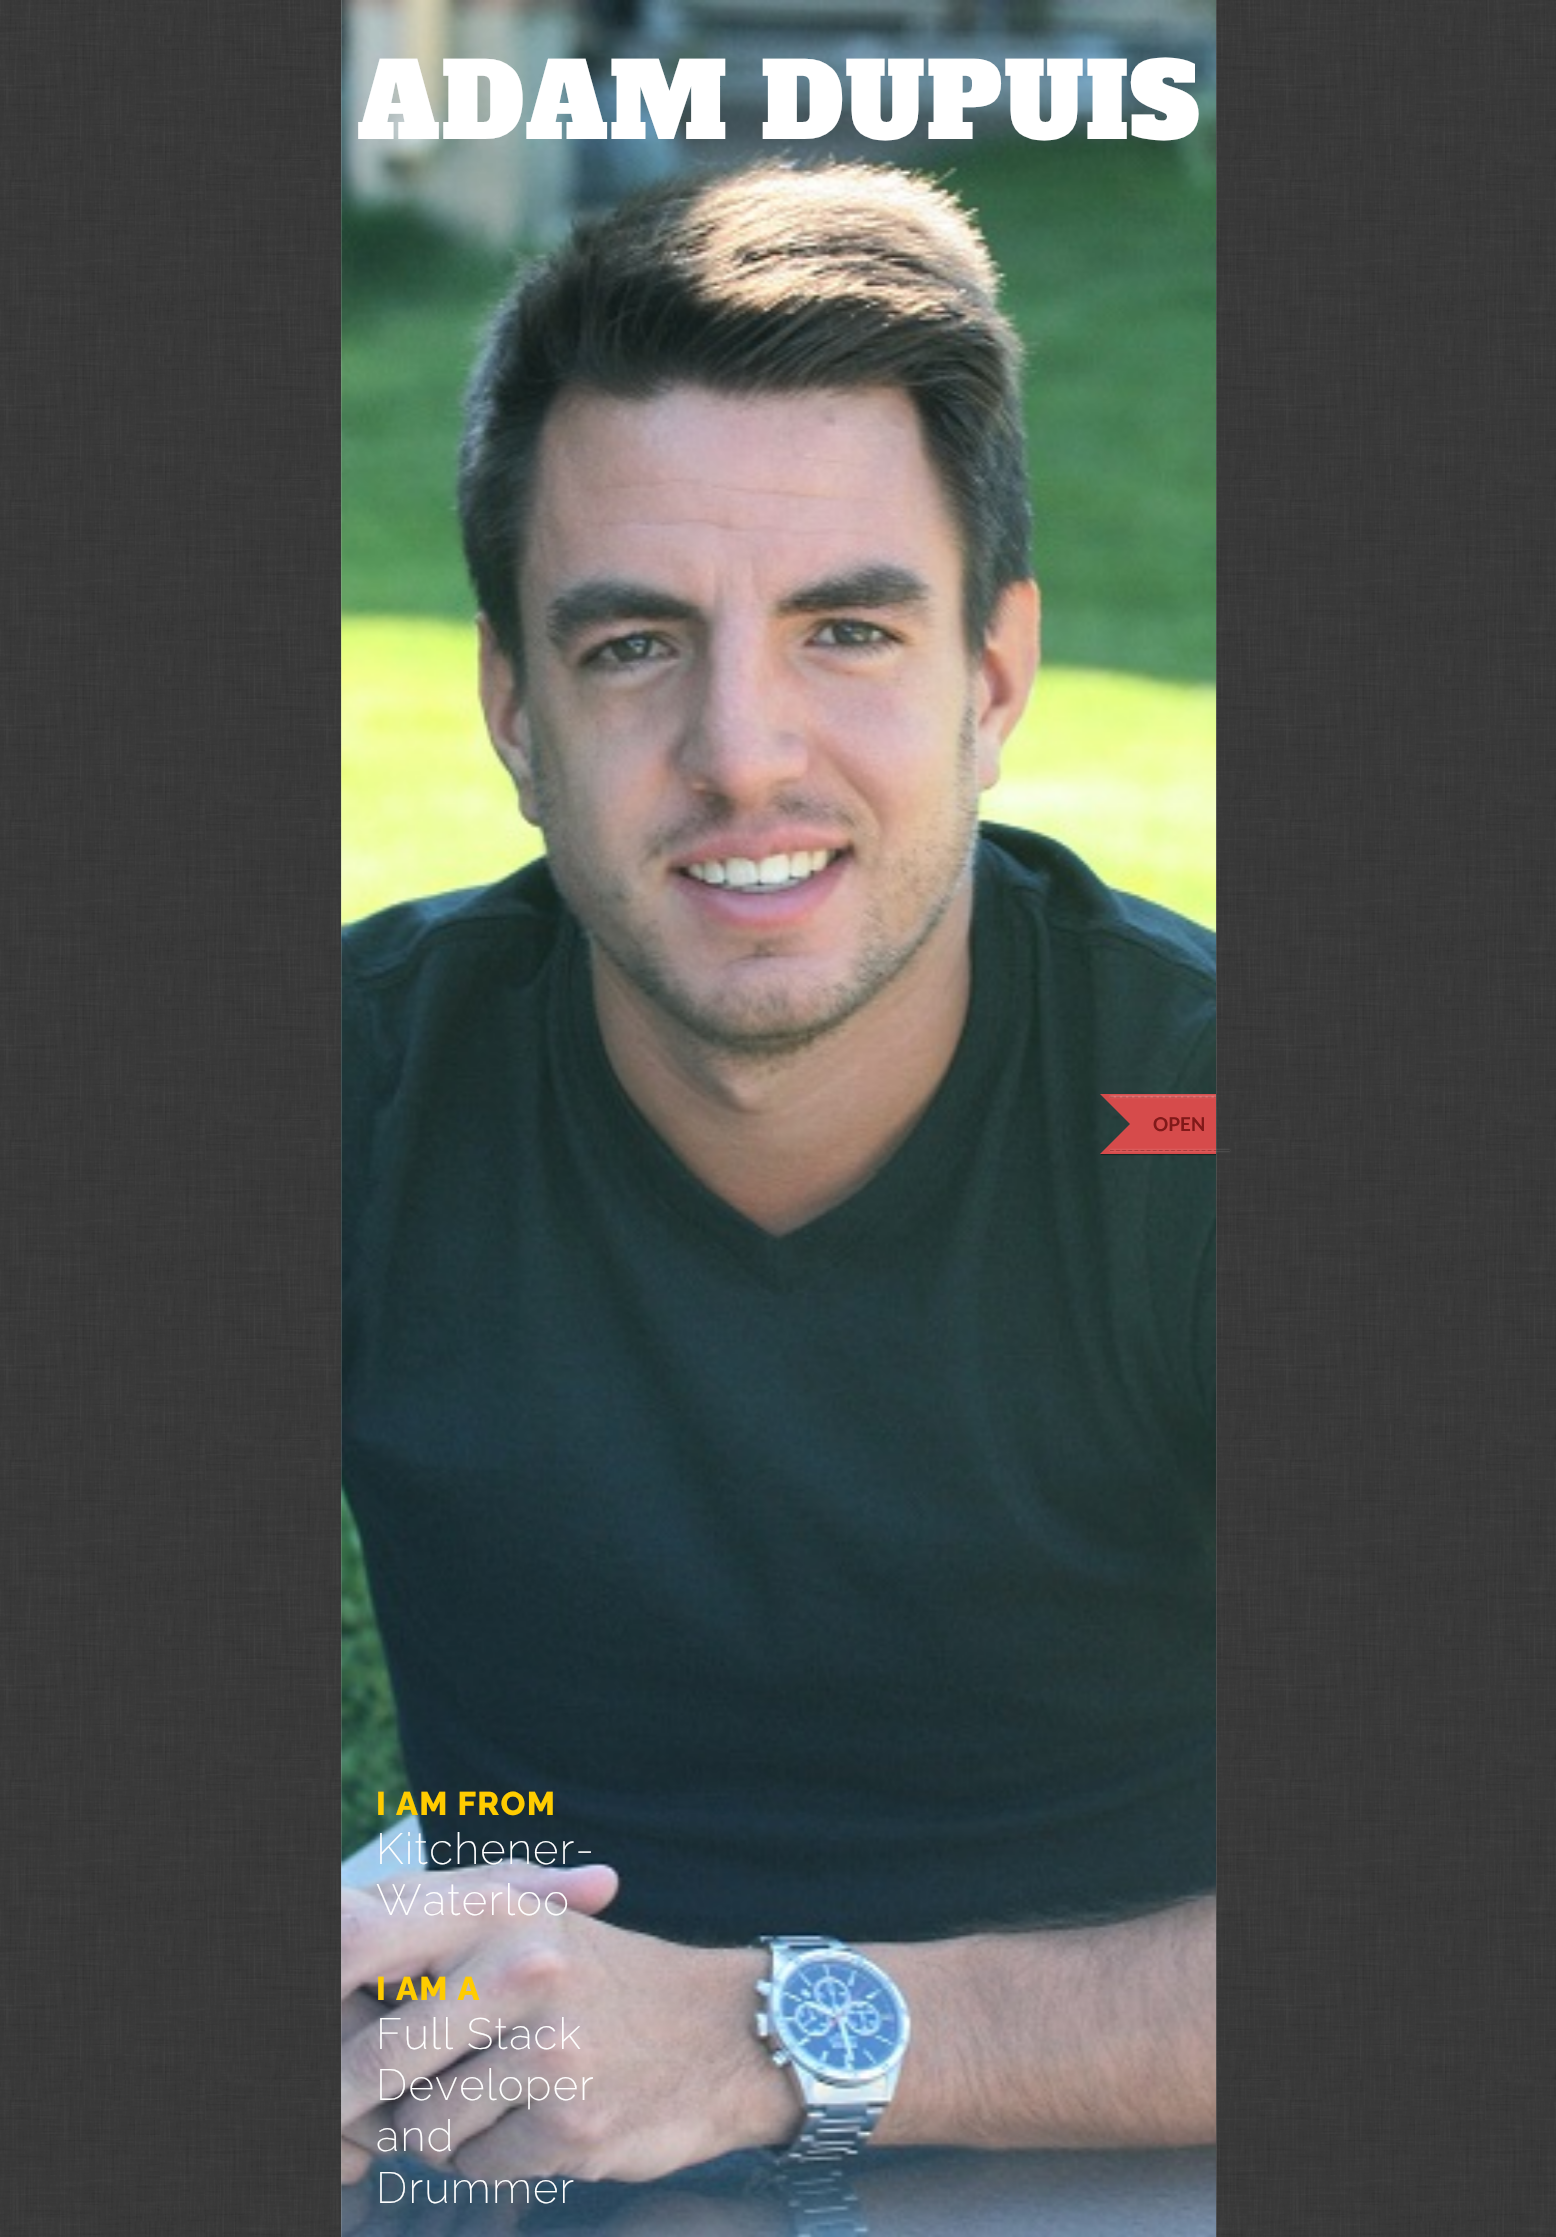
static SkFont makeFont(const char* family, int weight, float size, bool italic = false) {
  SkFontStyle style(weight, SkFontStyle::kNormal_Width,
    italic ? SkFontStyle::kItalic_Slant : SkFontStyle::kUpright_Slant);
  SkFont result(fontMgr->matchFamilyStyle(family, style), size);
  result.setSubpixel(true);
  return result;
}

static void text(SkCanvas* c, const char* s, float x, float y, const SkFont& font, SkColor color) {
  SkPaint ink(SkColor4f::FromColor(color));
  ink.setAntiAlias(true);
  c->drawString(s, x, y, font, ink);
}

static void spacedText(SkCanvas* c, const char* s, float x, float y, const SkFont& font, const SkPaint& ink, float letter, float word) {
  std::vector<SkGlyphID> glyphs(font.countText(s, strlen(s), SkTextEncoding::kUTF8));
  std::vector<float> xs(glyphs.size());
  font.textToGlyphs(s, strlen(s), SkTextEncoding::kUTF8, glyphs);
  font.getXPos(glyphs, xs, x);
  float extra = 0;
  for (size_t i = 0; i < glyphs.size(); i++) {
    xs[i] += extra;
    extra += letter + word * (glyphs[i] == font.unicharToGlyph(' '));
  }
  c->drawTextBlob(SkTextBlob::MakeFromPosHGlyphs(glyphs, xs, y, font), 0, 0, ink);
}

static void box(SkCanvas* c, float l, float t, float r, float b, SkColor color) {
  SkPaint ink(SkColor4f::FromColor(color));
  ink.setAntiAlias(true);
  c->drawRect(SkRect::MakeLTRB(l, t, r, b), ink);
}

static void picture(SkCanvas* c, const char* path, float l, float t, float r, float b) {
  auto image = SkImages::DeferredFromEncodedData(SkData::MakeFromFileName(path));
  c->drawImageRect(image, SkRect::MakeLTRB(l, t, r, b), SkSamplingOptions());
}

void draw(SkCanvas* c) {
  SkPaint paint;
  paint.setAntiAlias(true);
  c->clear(0xffffffff);
  picture(c, "img_01.png", 0, 0, 1556, 2237);
  picture(c, "img_02.png", 341, 0, 1217, 2237);
  picture(c, "img_03.png", 341, 0, 1217, 2237);
  SkFont face1 = makeFont("Alfa Slab One", 400, 103);
  paint.setColor(0xffffffff);
  spacedText(c, "ADAM DUPUIS", 357, 139, face1, paint, 1.25f, 0);
  c->save();
  c->clipRect(SkRect::MakeLTRB(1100, 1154, 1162, 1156));
  paint.setColor(0x66000000);
  paint.setMaskFilter(SkMaskFilter::MakeBlur(kNormal_SkBlurStyle, 0.5f));
  c->drawRect(SkRect::MakeLTRB(1101, 1095, 1161, 1155), paint);
  paint.setMaskFilter(nullptr);
  c->restore();
  paint.setColor(0xffd64b4b);
  c->drawPath(SkPathBuilder().moveTo(1100, 1094).lineTo(1160, 1094).lineTo(1130, 1124).close().detach(), paint);
  box(c, 1130, 1094, 1160, 1154, 0xffd64b4b);
  c->drawPath(SkPathBuilder().moveTo(1160, 1154).lineTo(1100, 1154).lineTo(1130, 1124).close().detach(), paint);
  c->save();
  c->clipRect(SkRect::MakeLTRB(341, 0, 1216, 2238));
  paint.setColor(0x66000000);
  paint.setMaskFilter(SkMaskFilter::MakeBlur(kNormal_SkBlurStyle, 0.5f));
  c->drawRect(SkRect::MakeLTRB(1161, 1095, 1231, 1155), paint);
  paint.setMaskFilter(nullptr);
  c->restore();
  box(c, 1160, 1094, 1216, 1154, 0xffd64b4b);
  c->save();
  c->clipRect(SkRect::MakeLTRB(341, 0, 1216, 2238));
  paint.setColor(0x80ffffff);
  paint.setMaskFilter(SkMaskFilter::MakeBlur(kNormal_SkBlurStyle, 1));
  c->drawRect(SkRect::MakeLTRB(1110, 1096, 1230, 1097), paint);
  paint.setMaskFilter(nullptr);
  c->restore();
  c->save();
  c->clipRect(SkRect::MakeLTRB(341, 0, 1216, 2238));
  paint.setStyle(SkPaint::kStroke_Style);
  paint.setStrokeWidth(1.2f);
  paint.setColor(0x33000000);
  paint.setPathEffect(SkDashPathEffect::Make({{3.75f, 2.36f}}, 0));
  c->drawPath(SkPathBuilder().moveTo(1110, 1097).lineTo(1230, 1097).detach(), paint);
  paint.setPathEffect(nullptr);
  c->restore();
  SkFont face2 = makeFont("Lato", 700, 19);
  text(c, "OPEN", 1153, 1131, face2, 0xff811919);
  c->save();
  c->clipPath(SkPathBuilder(SkPathFillType::kEvenOdd).moveTo(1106, 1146).lineTo(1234, 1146).lineTo(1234, 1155).lineTo(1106, 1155).close().moveTo(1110, 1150).lineTo(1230, 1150).lineTo(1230, 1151).lineTo(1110, 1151).close().detach(), true);
  paint.setStyle(SkPaint::kFill_Style);
  paint.setColor(0x66ffffff);
  paint.setMaskFilter(SkMaskFilter::MakeBlur(kNormal_SkBlurStyle, 1));
  c->drawRect(SkRect::MakeLTRB(1110, 1150, 1230, 1151), paint);
  paint.setMaskFilter(nullptr);
  c->restore();
  c->save();
  c->clipRect(SkRect::MakeLTRB(341, 0, 1216, 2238));
  paint.setStyle(SkPaint::kStroke_Style);
  paint.setColor(0xffab3c3c);
  paint.setPathEffect(SkDashPathEffect::Make({{3.75f, 2.36f}}, 0));
  c->drawPath(SkPathBuilder().moveTo(1110, 1150.5f).lineTo(1230, 1150.5f).detach(), paint);
  paint.setPathEffect(nullptr);
  c->restore();
  SkFont face3 = makeFont("Raleway", 800, 32.75f);
  paint.setStyle(SkPaint::kFill_Style);
  paint.setColor(0xffffcc00);
  spacedText(c, "I AM FROM", 376, 1815, face3, paint, 1.25f, 0);
  SkFont face4 = makeFont("Raleway", 200, 43.75f);
  paint.setColor(0xffffffff);
  spacedText(c, "Kitchener-", 376, 1864, face4, paint, 1.25f, 0);
  spacedText(c, "Waterloo", 376, 1915, face4, paint, 1.25f, 0);
  paint.setColor(0xffffcc00);
  spacedText(c, "I AM A", 376, 2000, face3, paint, 1.25f, 0);
  paint.setColor(0xffffffff);
  spacedText(c, "Full Stack", 376, 2049, face4, paint, 1.25f, 0);
  spacedText(c, "Developer", 376, 2100, face4, paint, 1.25f, 0);
  spacedText(c, "and", 376, 2151, face4, paint, 1.25f, 0);
  spacedText(c, "Drummer", 376, 2203, face4, paint, 1.25f, 0);
}
